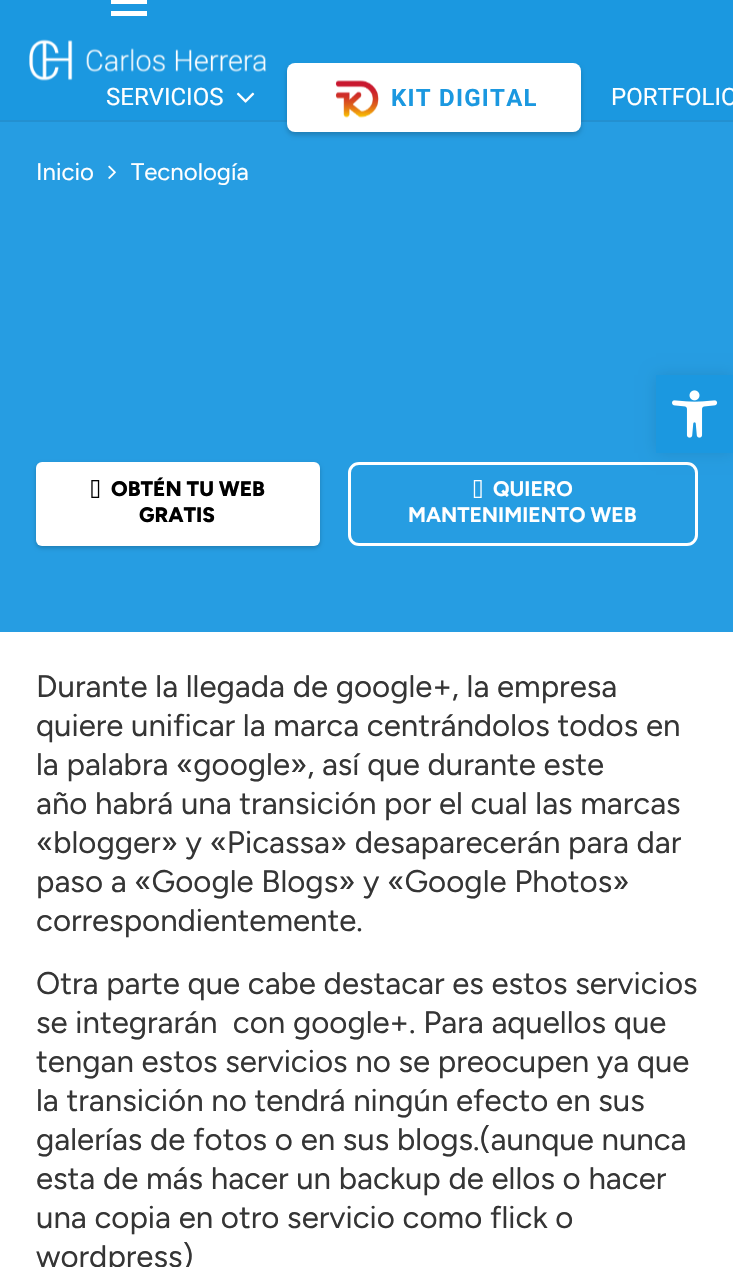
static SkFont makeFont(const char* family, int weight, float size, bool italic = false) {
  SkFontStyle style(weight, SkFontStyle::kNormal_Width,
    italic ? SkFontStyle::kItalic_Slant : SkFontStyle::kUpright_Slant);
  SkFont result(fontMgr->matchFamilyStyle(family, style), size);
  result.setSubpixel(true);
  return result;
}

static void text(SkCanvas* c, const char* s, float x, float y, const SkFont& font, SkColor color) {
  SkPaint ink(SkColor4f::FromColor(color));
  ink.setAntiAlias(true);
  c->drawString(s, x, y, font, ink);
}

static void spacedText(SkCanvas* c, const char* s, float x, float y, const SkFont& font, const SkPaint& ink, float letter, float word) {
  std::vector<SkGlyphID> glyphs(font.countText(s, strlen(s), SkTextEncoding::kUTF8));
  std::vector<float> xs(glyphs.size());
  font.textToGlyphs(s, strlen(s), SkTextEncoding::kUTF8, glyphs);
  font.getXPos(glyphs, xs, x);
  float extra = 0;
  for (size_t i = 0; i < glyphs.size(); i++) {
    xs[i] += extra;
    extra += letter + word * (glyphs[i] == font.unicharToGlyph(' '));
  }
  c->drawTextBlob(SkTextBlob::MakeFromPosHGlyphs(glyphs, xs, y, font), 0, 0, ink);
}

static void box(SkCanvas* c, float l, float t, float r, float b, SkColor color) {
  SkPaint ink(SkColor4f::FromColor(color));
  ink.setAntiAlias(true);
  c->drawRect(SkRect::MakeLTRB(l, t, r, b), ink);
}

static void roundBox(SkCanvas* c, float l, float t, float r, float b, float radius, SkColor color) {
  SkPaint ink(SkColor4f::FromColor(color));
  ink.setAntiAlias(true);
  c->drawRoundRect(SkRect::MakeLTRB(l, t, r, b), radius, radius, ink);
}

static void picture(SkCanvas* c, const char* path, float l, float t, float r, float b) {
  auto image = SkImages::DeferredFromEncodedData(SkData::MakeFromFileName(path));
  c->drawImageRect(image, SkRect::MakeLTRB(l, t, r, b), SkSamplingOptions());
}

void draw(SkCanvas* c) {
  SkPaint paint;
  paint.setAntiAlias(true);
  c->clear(0xffffffff);
  paint.setColor(0xff2390d0);
  c->drawPath(SkPathBuilder().moveTo(0, 120).lineTo(0, 122).lineTo(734, 122).lineTo(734, 2).lineTo(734, 120).close().detach(), paint);
  box(c, 0, 0, 733, 120, 0xff1b98e0);
  picture(c, "img_01.png", 29, 39, 267, 81);
  box(c, 111, 0, 147, 4, 0xffffffff);
  box(c, 111, 11, 147, 16, 0xffffffff);
  SkFont face1 = makeFont("Roboto", 400, 24);
  text(c, "SERVICIOS", 106, 105, face1, 0xffffffff);
  picture(c, "img_02.png", 236, 92, 255, 103);
  box(c, 0, 122, 733, 632, 0xff269de2);
  paint.setColor(0x33000000);
  paint.setMaskFilter(SkMaskFilter::MakeBlur(kNormal_SkBlurStyle, 2.5f));
  c->drawRoundRect(SkRect::MakeLTRB(287, 66, 581, 135), 8, 8, paint);
  paint.setMaskFilter(nullptr);
  roundBox(c, 287, 63, 581, 132, 8, 0xffffffff);
  picture(c, "img_03.png", 335, 80, 379, 118);
  SkFont face2 = makeFont("Roboto", 700, 24);
  paint.setColor(0xff1b98e0);
  spacedText(c, "KIT DIGITAL", 391, 106, face2, paint, 1.25f, 0);
  text(c, "PORTFOLIO", 611, 105, face1, 0xffffffff);
  SkFont face3 = makeFont("Figtree", 300, 24);
  text(c, "Inicio", 36, 180, face3, 0xffffffff);
  picture(c, "img_04.png", 108, 165, 116, 179);
  text(c, "Tecnología", 131, 180, face3, 0xffffffff);
  paint.setColor(0x33000000);
  paint.setMaskFilter(SkMaskFilter::MakeBlur(kNormal_SkBlurStyle, 2));
  c->drawRoundRect(SkRect::MakeLTRB(36, 464, 320, 548), 6, 6, paint);
  paint.setMaskFilter(nullptr);
  roundBox(c, 36, 462, 320, 546, 6, 0xffffffff);
  picture(c, "img_05.png", 91, 480, 100, 498);
  SkFont face4 = makeFont("Figtree", 800, 21);
  text(c, "OBTÉN TU WEB", 111, 496, face4, 0xff000000);
  text(c, "GRATIS", 139, 522, face4, 0xff000000);
  picture(c, "img_06.png", 473, 480, 482, 498);
  paint.setStyle(SkPaint::kStroke_Style);
  paint.setStrokeWidth(3);
  paint.setColor(0xffffffff);
  c->drawRoundRect(SkRect::MakeLTRB(349.5f, 463.5f, 696.5f, 544.5f), 9.5f, 9.5f, paint);
  SkFont face5 = makeFont("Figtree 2", 300, 21);
  text(c, "QUIERO", 493, 496, face5, 0xffffffff);
  text(c, "MANTENIMIENTO WEB", 408, 522, face5, 0xffffffff);
  SkFont face6 = makeFont("Figtree", 300, 31.2f);
  text(c, "Durante la llegada de google+, la empresa", 36, 697, face6, 0xff353535);
  text(c, "quiere unificar la marca centrándolos todos en", 36, 736, face6, 0xff353535);
  text(c, "la palabra «google», así que durante este", 36, 775, face6, 0xff353535);
  text(c, "año habrá una transición por el cual las marcas", 36, 814, face6, 0xff353535);
  text(c, "«blogger» y «Picassa» desaparecerán para dar", 36, 853, face6, 0xff353535);
  text(c, "paso a «Google Blogs» y «Google Photos»", 36, 892, face6, 0xff353535);
  text(c, "correspondientemente.", 36, 931, face6, 0xff353535);
  text(c, "Otra parte que cabe destacar es estos servicios", 36, 994, face6, 0xff353535);
  text(c, "se integrarán  con google+. Para aquellos que", 36, 1033, face6, 0xff353535);
  text(c, "tengan estos servicios no se preocupen ya que", 36, 1072, face6, 0xff353535);
  text(c, "la transición no tendrá ningún efecto en sus", 36, 1111, face6, 0xff353535);
  text(c, "galerías de fotos o en sus blogs.(aunque nunca", 36, 1150, face6, 0xff353535);
  text(c, "esta de más hacer un backup de ellos o hacer", 36, 1189, face6, 0xff353535);
  text(c, "una copia en otro servicio como flick o", 36, 1228, face6, 0xff353535);
  text(c, "wordpress)", 36, 1267, face6, 0xff353535);
  paint.setStyle(SkPaint::kFill_Style);
  paint.setColor(0x1a000000);
  paint.setMaskFilter(SkMaskFilter::MakeBlur(kNormal_SkBlurStyle, 7.5f));
  c->drawRect(SkRect::MakeLTRB(656, 375, 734, 453), paint);
  paint.setMaskFilter(nullptr);
  box(c, 656, 375, 733, 453, 0xff1b98e0);
  picture(c, "img_07.png", 672, 390, 718, 438);
}
